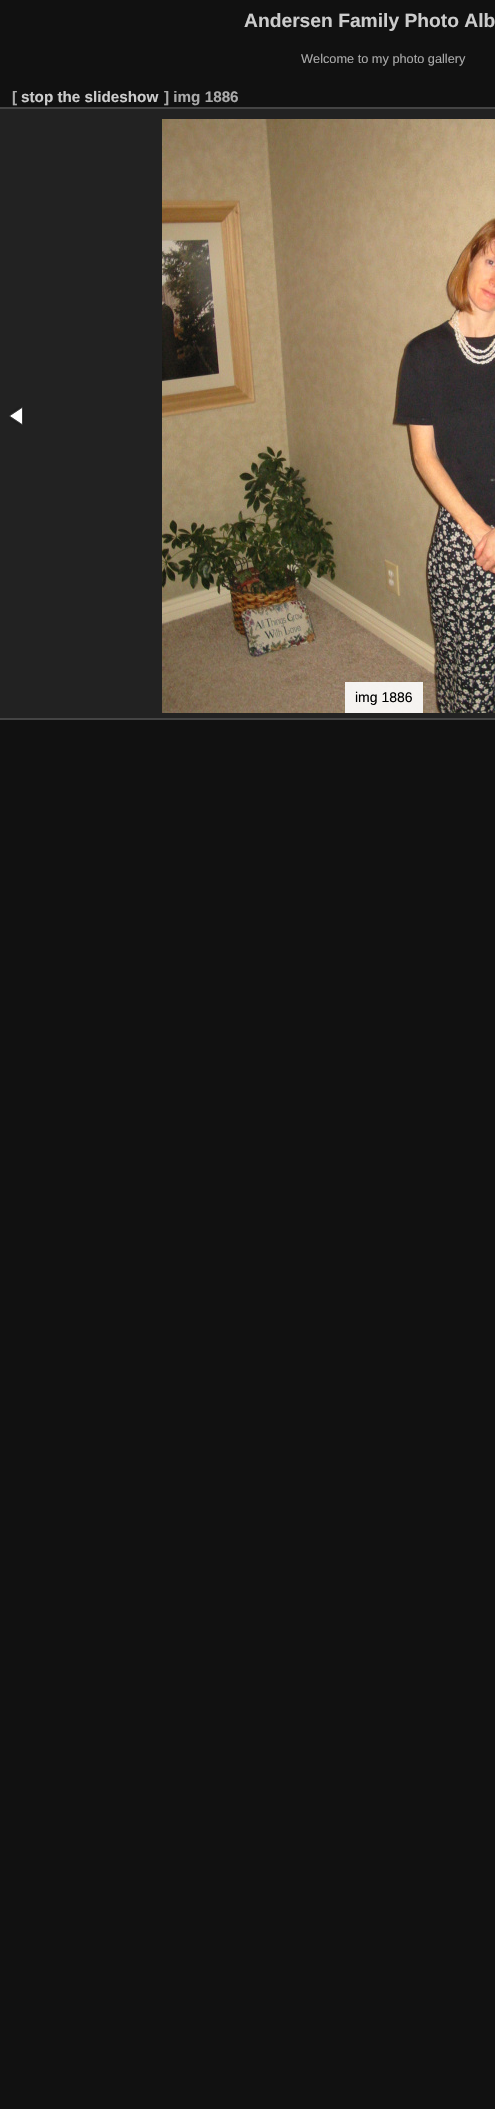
static SkFont makeFont(const char* family, int weight, float size, bool italic = false) {
  SkFontStyle style(weight, SkFontStyle::kNormal_Width,
    italic ? SkFontStyle::kItalic_Slant : SkFontStyle::kUpright_Slant);
  SkFont result(fontMgr->matchFamilyStyle(family, style), size);
  result.setSubpixel(true);
  return result;
}

static void text(SkCanvas* c, const char* s, float x, float y, const SkFont& font, SkColor color) {
  SkPaint ink(SkColor4f::FromColor(color));
  ink.setAntiAlias(true);
  c->drawString(s, x, y, font, ink);
}

static void box(SkCanvas* c, float l, float t, float r, float b, SkColor color) {
  SkPaint ink(SkColor4f::FromColor(color));
  ink.setAntiAlias(true);
  c->drawRect(SkRect::MakeLTRB(l, t, r, b), ink);
}

static void picture(SkCanvas* c, const char* path, float l, float t, float r, float b) {
  auto image = SkImages::DeferredFromEncodedData(SkData::MakeFromFileName(path));
  c->drawImageRect(image, SkRect::MakeLTRB(l, t, r, b), SkSamplingOptions());
}

void draw(SkCanvas* c) {
  SkPaint paint;
  paint.setAntiAlias(true);
  c->clear(0xff111111);
  SkFont face1 = makeFont("Liberation Sans", 700, 19.25f);
  text(c, "Andersen Family Photo Alb", 244, 27, face1, 0xffcccccc);
  SkFont face2 = makeFont("Liberation Sans", 400, 12.75f);
  text(c, "Welcome to my photo gallery", 301, 63, face2, 0xffaaaaaa);
  box(c, 0, 107, 495, 109, 0xff444444);
  SkFont face3 = makeFont("Liberation Sans", 700, 15.25f);
  text(c, "[", 12, 102, face3, 0xffaaaaaa);
  text(c, "stop the slideshow", 21, 102, face3, 0xffcccccc);
  text(c, "] img 1886", 164, 102, face3, 0xffaaaaaa);
  box(c, 0, 109, 495, 718, 0xff222222);
  box(c, 0, 718, 495, 720, 0xff444444);
  picture(c, "img_01.png", 9, 407, 24, 425);
  picture(c, "img_02.png", 162, 119, 495, 713);
  box(c, 345, 682, 423, 713, 0xe6ffffff);
  SkFont face4 = makeFont("Liberation Sans", 400, 14);
  text(c, "img 1886", 355, 702, face4, 0xff000000);
}
